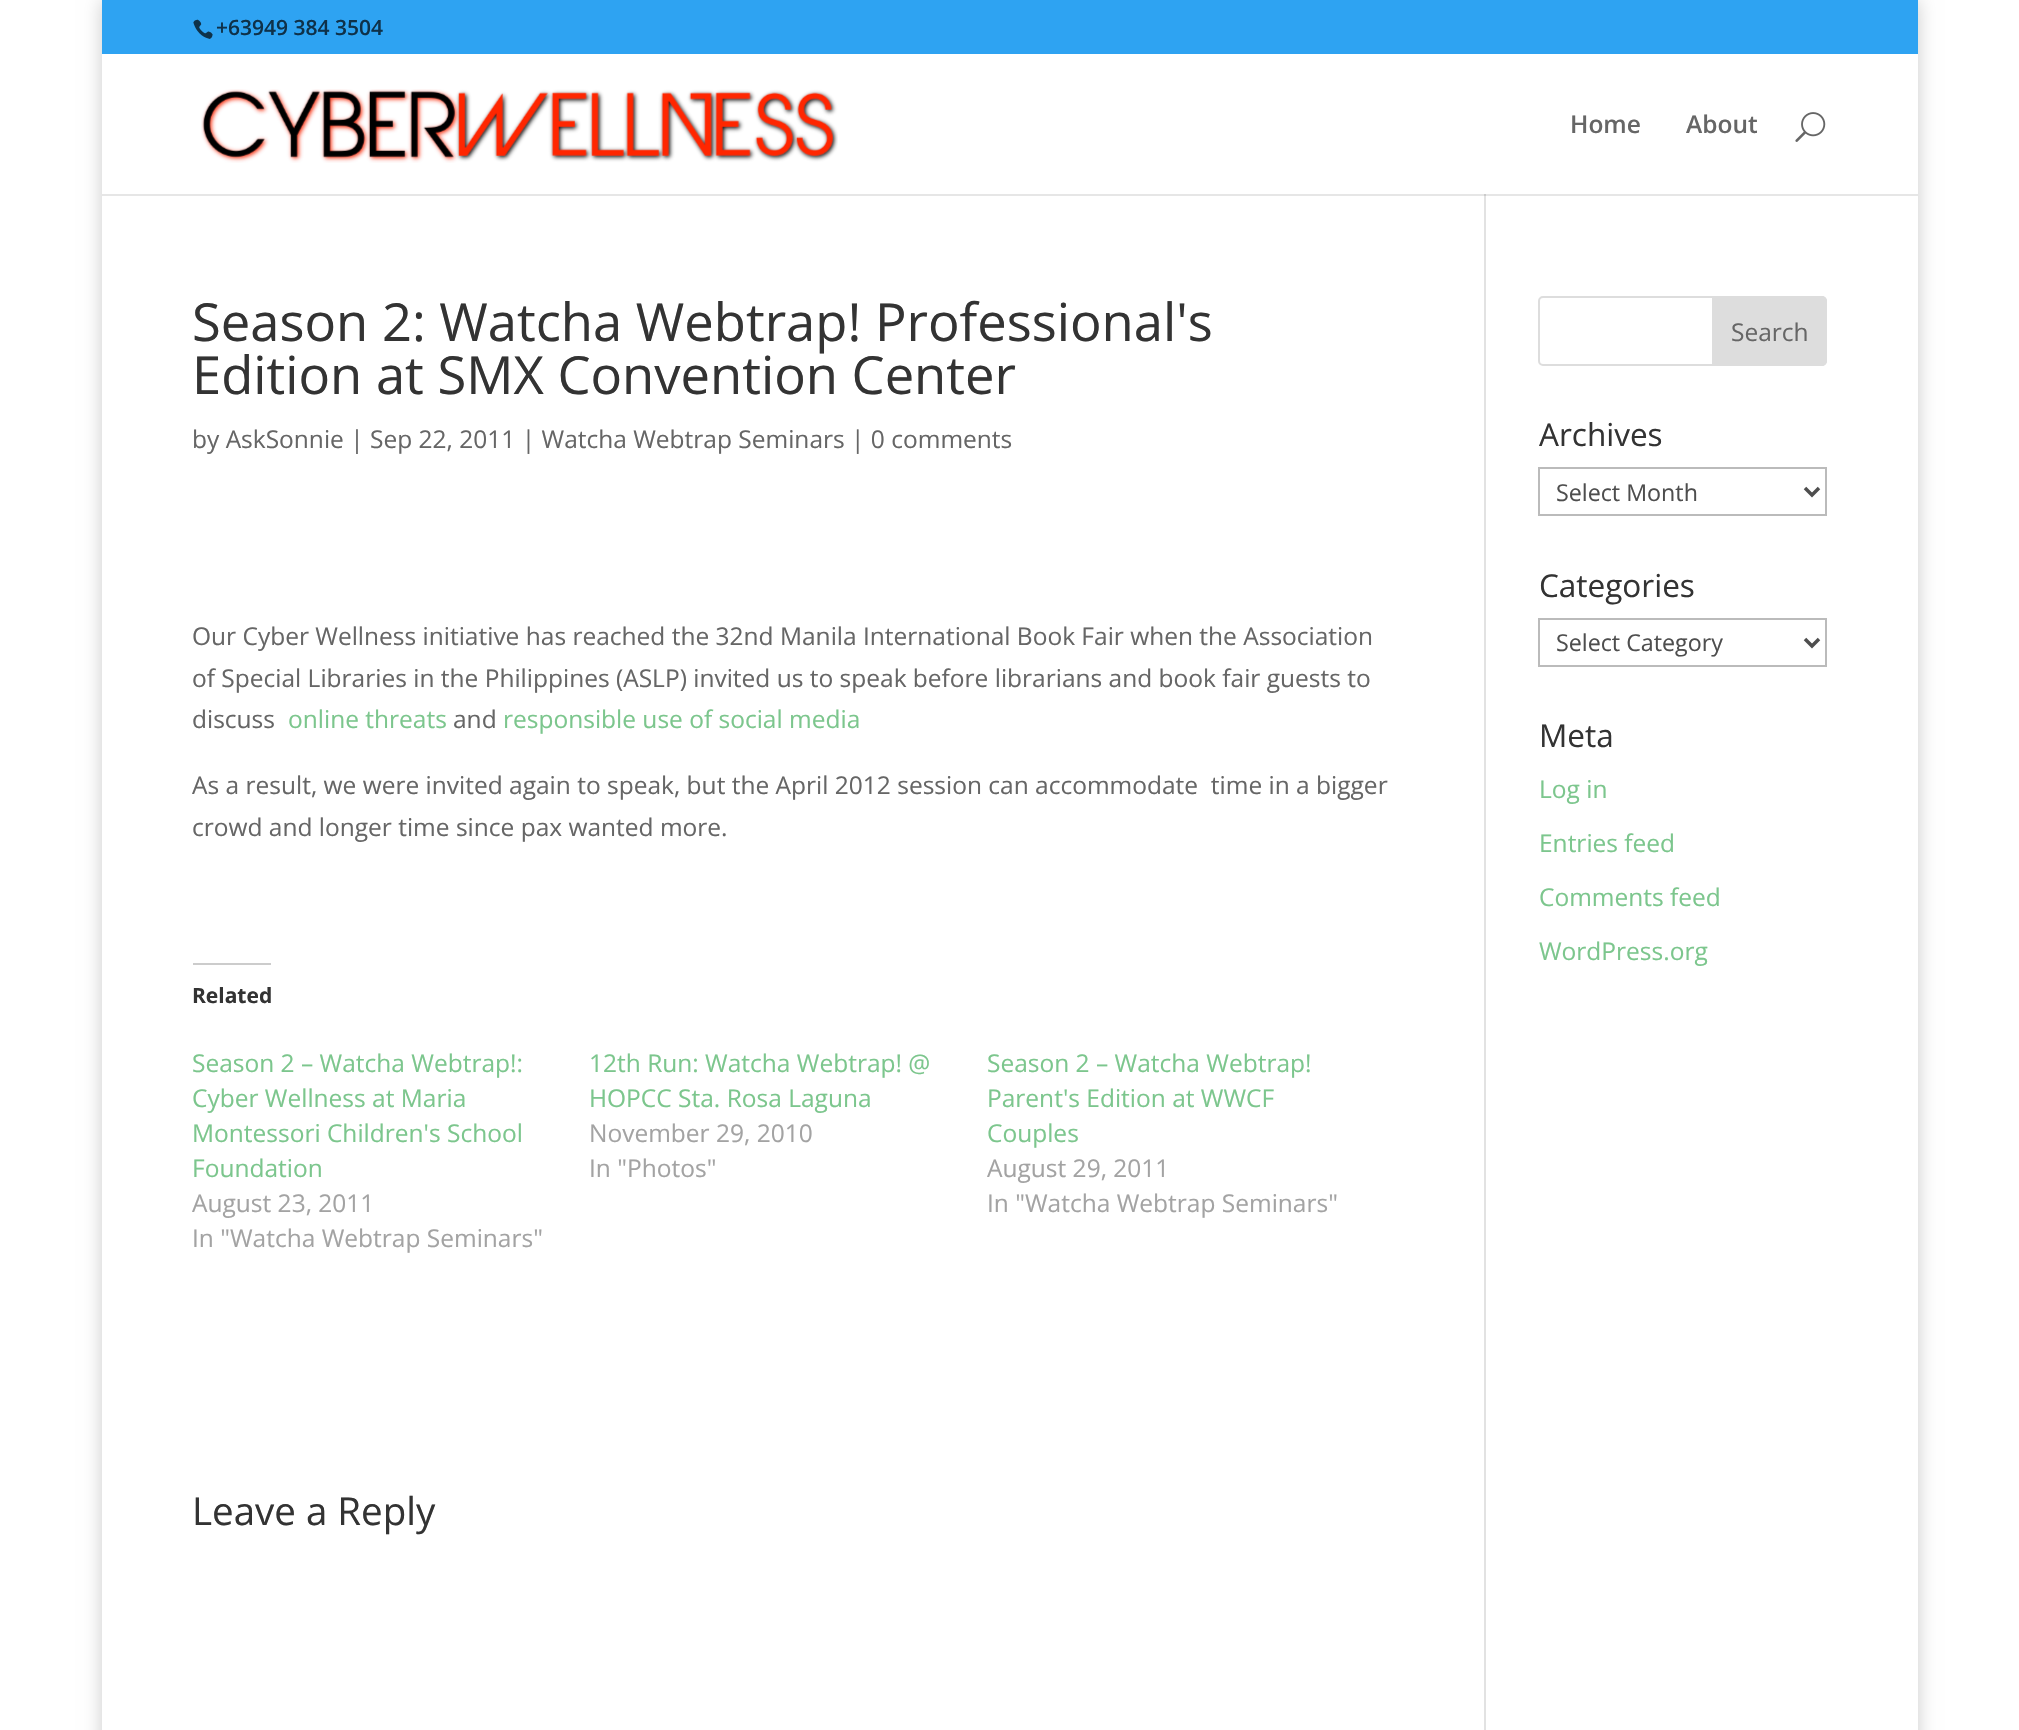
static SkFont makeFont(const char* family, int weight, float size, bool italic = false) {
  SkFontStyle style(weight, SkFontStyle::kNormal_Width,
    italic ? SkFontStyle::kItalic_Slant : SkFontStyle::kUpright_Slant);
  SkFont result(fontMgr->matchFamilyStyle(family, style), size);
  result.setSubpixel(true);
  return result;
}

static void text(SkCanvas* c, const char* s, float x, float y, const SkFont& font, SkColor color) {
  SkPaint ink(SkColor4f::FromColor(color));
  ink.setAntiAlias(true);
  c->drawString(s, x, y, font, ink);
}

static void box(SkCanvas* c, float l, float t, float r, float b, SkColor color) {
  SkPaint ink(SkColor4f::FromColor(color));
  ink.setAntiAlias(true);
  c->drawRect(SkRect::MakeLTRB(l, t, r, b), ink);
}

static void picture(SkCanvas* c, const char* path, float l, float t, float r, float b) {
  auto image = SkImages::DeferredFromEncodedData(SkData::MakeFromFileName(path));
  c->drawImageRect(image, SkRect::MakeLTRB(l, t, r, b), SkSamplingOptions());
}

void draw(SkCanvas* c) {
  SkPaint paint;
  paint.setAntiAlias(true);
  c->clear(0xffffffff);
  box(c, 102, 194, 1918, 196, 0xffe6e6e6);
  c->save();
  c->clipPath(SkPathBuilder(SkPathFillType::kEvenOdd).moveTo(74, 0).lineTo(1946, 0).lineTo(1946, 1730).lineTo(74, 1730).close().moveTo(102, 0).lineTo(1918, 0).lineTo(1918, 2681).lineTo(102, 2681).close().detach(), true);
  paint.setColor(0x33000000);
  paint.setMaskFilter(SkMaskFilter::MakeBlur(kNormal_SkBlurStyle, 9));
  c->drawRect(SkRect::MakeLTRB(102, 0, 1918, 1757), paint);
  paint.setMaskFilter(nullptr);
  c->restore();
  box(c, 102, 0, 1918, 54, 0xff2ea3f2);
  picture(c, "img_01.png", 193, 19, 213, 39);
  SkFont face1 = makeFont("Open Sans", 600, 21);
  text(c, "+63949 384 3504", 216, 35, face1, 0xff0e3149);
  picture(c, "img_02.png", 201, 89, 838, 163);
  SkFont face2 = makeFont("Open Sans", 600, 24.5f);
  text(c, "Home", 1570, 133, face2, 0xff666666);
  text(c, "About", 1686, 133, face2, 0xff666666);
  picture(c, "img_03.png", 1795, 112, 1826, 142);
  box(c, 1484, 194, 1486, 1730, 0xffe2e2e2);
  box(c, 1484, 194, 1486, 196, 0xffcbcbcb);
  SkFont face3 = makeFont("Open Sans", 400, 52.5f);
  text(c, "Season 2: Watcha Webtrap! Professional's", 192, 341, face3, 0xff333333);
  text(c, "Edition at SMX Convention Center", 192, 394, face3, 0xff333333);
  SkFont face4 = makeFont("Open Sans", 400, 24.5f);
  text(c, "by AskSonnie | Sep 22, 2011 | Watcha Webtrap Seminars | 0 comments", 192, 448, face4, 0xff666666);
  text(c, "Our Cyber Wellness initiative has reached the 32nd Manila International Book Fair when the Association", 192, 645, face4, 0xff666666);
  text(c, "of Special Libraries in the Philippines (ASLP) invited us to speak before librarians and book fair guests to", 192, 687, face4, 0xff666666);
  text(c, "discuss", 192, 728, face4, 0xff666666);
  text(c, "online threats", 288, 728, face4, 0xff7cc68d);
  text(c, "and", 453, 728, face4, 0xff666666);
  text(c, "responsible use of social media", 503, 728, face4, 0xff7cc68d);
  text(c, "As a result, we were invited again to speak, but the April 2012 session can accommodate  time in a bigger", 192, 794, face4, 0xff666666);
  text(c, "crowd and longer time since pax wanted more.", 192, 836, face4, 0xff666666);
  box(c, 193, 963, 271, 965, 0xffcccccc);
  SkFont face5 = makeFont("Open Sans", 700, 21);
  text(c, "Related", 192, 1003, face5, 0xff333333);
  text(c, "Season 2 – Watcha Webtrap!:", 192, 1072, face4, 0xff7cc68d);
  text(c, "Cyber Wellness at Maria", 192, 1107, face4, 0xff7cc68d);
  text(c, "Montessori Children's School", 192, 1142, face4, 0xff7cc68d);
  text(c, "Foundation", 192, 1177, face4, 0xff7cc68d);
  text(c, "August 23, 2011", 192, 1212, face4, 0xffa3a3a3);
  text(c, "In \"Watcha Webtrap Seminars\"", 192, 1247, face4, 0xffa3a3a3);
  text(c, "12th Run: Watcha Webtrap! @", 589, 1072, face4, 0xff7cc68d);
  text(c, "HOPCC Sta. Rosa Laguna", 589, 1107, face4, 0xff7cc68d);
  text(c, "November 29, 2010", 589, 1142, face4, 0xffa3a3a3);
  text(c, "In \"Photos\"", 589, 1177, face4, 0xffa3a3a3);
  text(c, "Season 2 – Watcha Webtrap!", 987, 1072, face4, 0xff7cc68d);
  text(c, "Parent's Edition at WWCF", 987, 1107, face4, 0xff7cc68d);
  text(c, "Couples", 987, 1142, face4, 0xff7cc68d);
  text(c, "August 29, 2011", 987, 1177, face4, 0xffa3a3a3);
  text(c, "In \"Watcha Webtrap Seminars\"", 987, 1212, face4, 0xffa3a3a3);
  SkFont face6 = makeFont("Open Sans", 400, 38.5f);
  text(c, "Leave a Reply", 192, 1525, face6, 0xff333333);
  paint.setStyle(SkPaint::kStroke_Style);
  paint.setStrokeWidth(2);
  paint.setColor(0xffdddddd);
  c->drawRoundRect(SkRect::MakeLTRB(1539, 297, 1826, 365), 4, 4, paint);
  paint.setStyle(SkPaint::kFill_Style);
  c->drawPath(SkPathBuilder().moveTo(1713, 297).lineTo(1822, 297).cubicTo(1824, 297, 1826, 299, 1826, 301).lineTo(1826, 361).cubicTo(1826, 363, 1824, 365, 1822, 365).lineTo(1713, 365).close().detach(), paint);
  paint.setStyle(SkPaint::kStroke_Style);
  c->drawPath(SkPathBuilder().moveTo(1713, 297).lineTo(1822, 297).cubicTo(1824, 297, 1826, 299, 1826, 301).lineTo(1826, 361).cubicTo(1826, 363, 1824, 365, 1822, 365).lineTo(1713, 365).close().detach(), paint);
  text(c, "Search", 1731, 341, face4, 0xff666666);
  SkFont face7 = makeFont("Open Sans", 400, 31.5f);
  text(c, "Archives", 1539, 446, face7, 0xff333333);
  paint.setColor(0xffbbbbbb);
  c->drawRect(SkRect::MakeLTRB(1539, 468, 1826, 515), paint);
  paint.setStrokeWidth(3.5f);
  paint.setColor(0xff4e4e4e);
  c->drawPath(SkPathBuilder().moveTo(1805, 488).lineTo(1812, 495).lineTo(1819, 488).detach(), paint);
  SkFont face8 = makeFont("Open Sans", 400, 23.25f);
  text(c, "Select Month", 1556, 501, face8, 0xff4e4e4e);
  text(c, "Categories", 1539, 597, face7, 0xff333333);
  paint.setStrokeWidth(2);
  paint.setColor(0xffbbbbbb);
  c->drawRect(SkRect::MakeLTRB(1539, 619, 1826, 666), paint);
  paint.setStrokeWidth(3.5f);
  paint.setColor(0xff4e4e4e);
  c->drawPath(SkPathBuilder().moveTo(1805, 639).lineTo(1812, 646).lineTo(1819, 639).detach(), paint);
  text(c, "Select Category", 1556, 651, face8, 0xff4e4e4e);
  text(c, "Meta", 1539, 747, face7, 0xff333333);
  text(c, "Log in", 1539, 798, face4, 0xff7cc68d);
  text(c, "Entries feed", 1539, 852, face4, 0xff7cc68d);
  text(c, "Comments feed", 1539, 906, face4, 0xff7cc68d);
  text(c, "WordPress.org", 1539, 960, face4, 0xff7cc68d);
}
